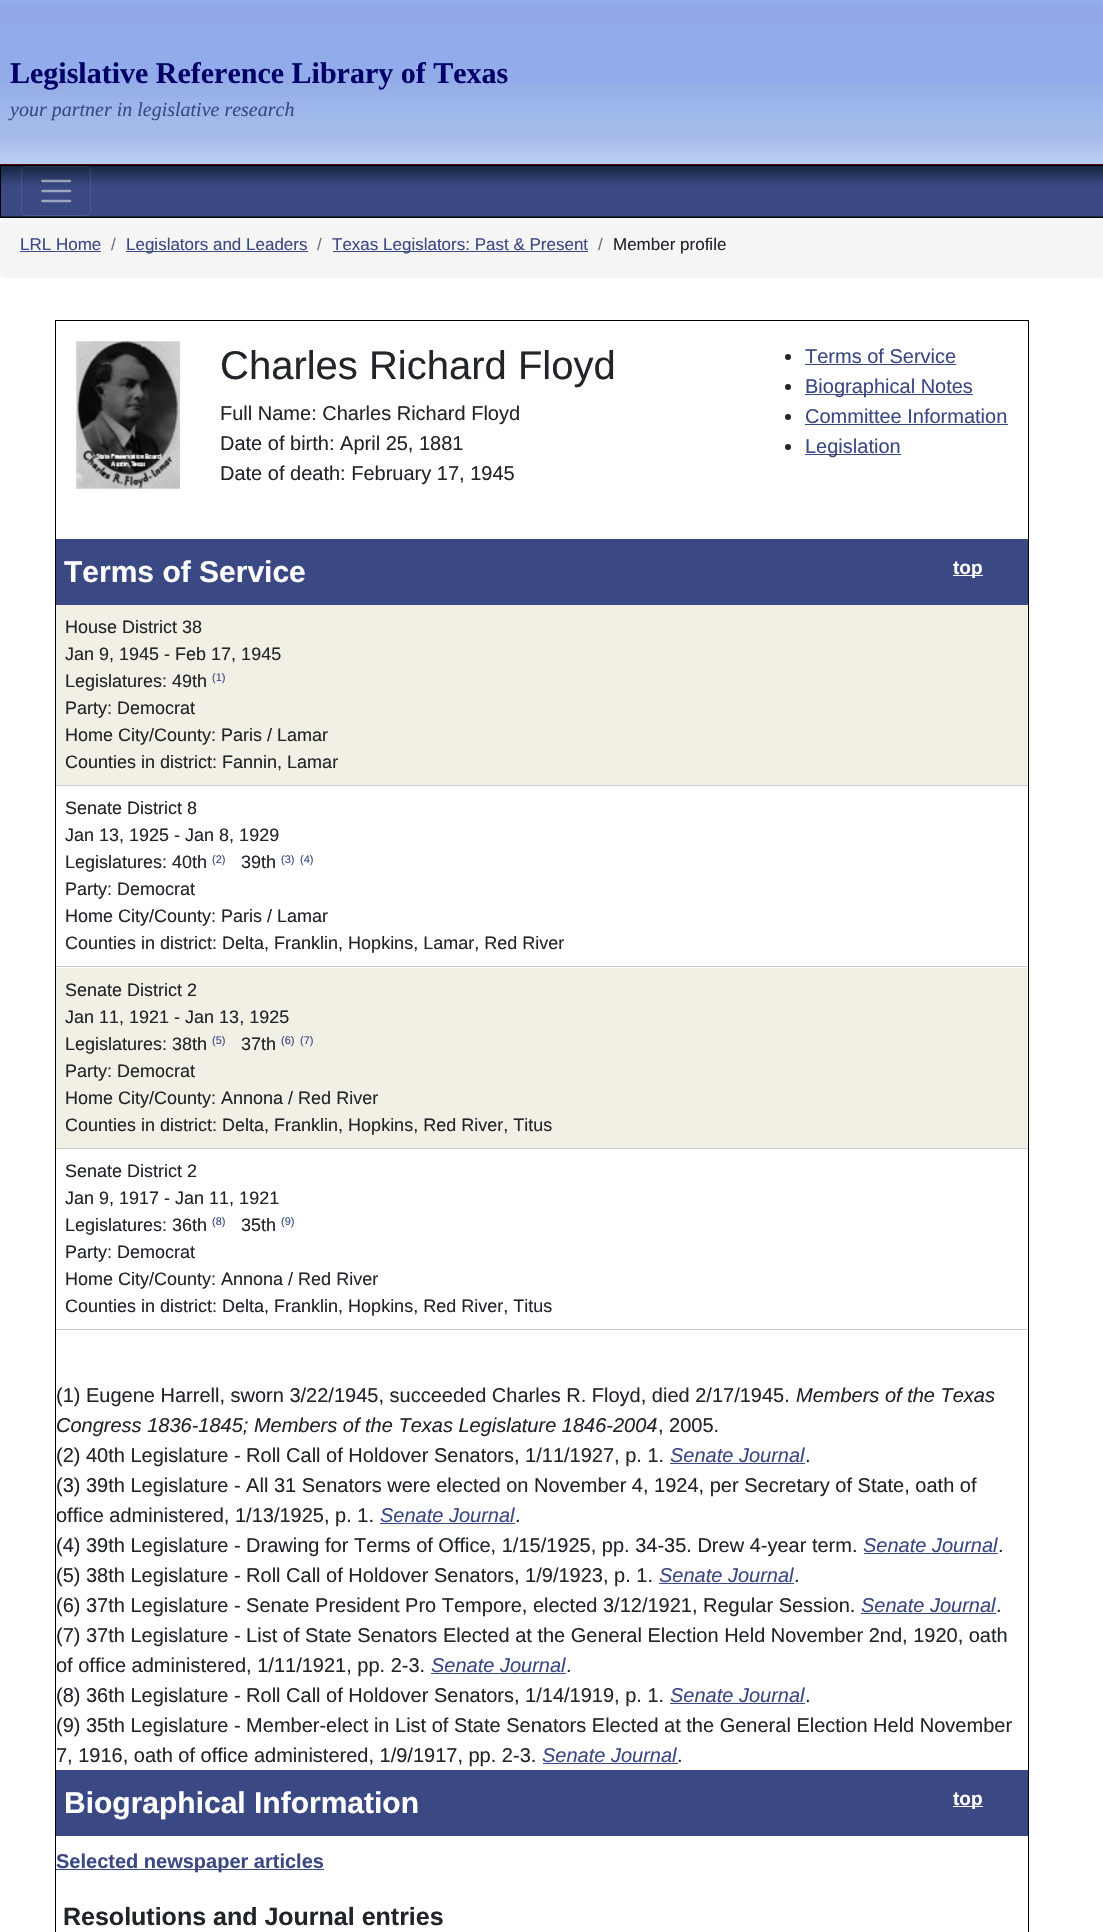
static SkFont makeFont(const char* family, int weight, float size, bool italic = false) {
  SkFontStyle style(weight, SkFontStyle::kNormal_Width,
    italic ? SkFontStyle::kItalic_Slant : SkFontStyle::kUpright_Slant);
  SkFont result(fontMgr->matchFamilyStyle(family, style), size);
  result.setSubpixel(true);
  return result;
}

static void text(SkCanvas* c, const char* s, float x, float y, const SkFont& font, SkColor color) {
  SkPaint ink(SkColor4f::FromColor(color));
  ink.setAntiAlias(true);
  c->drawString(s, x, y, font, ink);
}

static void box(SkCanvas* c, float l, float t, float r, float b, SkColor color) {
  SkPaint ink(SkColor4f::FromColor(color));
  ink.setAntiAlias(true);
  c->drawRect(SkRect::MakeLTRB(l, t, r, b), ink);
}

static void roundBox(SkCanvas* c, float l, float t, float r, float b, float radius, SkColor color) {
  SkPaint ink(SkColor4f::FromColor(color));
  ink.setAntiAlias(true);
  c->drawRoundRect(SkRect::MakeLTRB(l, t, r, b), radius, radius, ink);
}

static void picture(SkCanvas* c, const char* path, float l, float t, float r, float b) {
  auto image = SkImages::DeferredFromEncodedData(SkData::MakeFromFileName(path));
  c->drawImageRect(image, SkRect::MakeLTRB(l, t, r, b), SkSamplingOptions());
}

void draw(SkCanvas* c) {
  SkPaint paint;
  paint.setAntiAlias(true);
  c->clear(0xffffffff);
  picture(c, "img_01.png", 0, 0, 1103, 164);
  box(c, 0, 164, 1103, 165, 0xff660000);
  SkFont face1 = makeFont("Liberation Serif", 700, 30);
  text(c, "Legislative Reference Library of Texas", 10, 83, face1, 0xff000066);
  SkFont face2 = makeFont("Liberation Serif", 400, 20, true);
  text(c, "your partner in legislative research", 10, 116, face2, 0xff3a4883);
  {
    const SkColor colors[] = {0xff162742, 0xff3a4883};
    const float stops[] = {0, 0.4f};
    const SkPoint ends[] = {{552, 166}, {552, 216}};
    paint.setShader(SkGradientShader::MakeLinear(ends, colors, stops, 2, SkTileMode::kClamp));
    paint.setAlpha(255);
  }
  c->drawRect(SkRect::MakeLTRB(1, 166, 1103, 216), paint);
  {
    const SkColor colors[] = {0xff162742, 0xff3a4883};
    const float stops[] = {0, 0.4f};
    const SkPoint ends[] = {{552, 216}, {552, 266}};
    paint.setShader(SkGradientShader::MakeLinear(ends, colors, stops, 2, SkTileMode::kClamp));
    paint.setAlpha(255);
  }
  c->drawRect(SkRect::MakeLTRB(0, 216, 1103, 217), paint);
  paint.setStyle(SkPaint::kStroke_Style);
  paint.setStrokeWidth(1);
  paint.setShader(nullptr);
  paint.setColor(0xff000000);
  c->drawRect(SkRect::MakeLTRB(0.5f, 165.5f, 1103.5f, 217.5f), paint);
  paint.setColor(0x1affffff);
  c->drawRoundRect(SkRect::MakeLTRB(21.5f, 166.5f, 90.5f, 215.5f), 4.5f, 4.5f, paint);
  paint.setStrokeWidth(2.5f);
  paint.setStrokeCap(SkPaint::kRound_Cap);
  paint.setColor(0x80ffffff);
  c->drawPath(SkPathBuilder().moveTo(42.5f, 181).lineTo(70, 181).moveTo(42.5f, 191).lineTo(70, 191).moveTo(42.5f, 201).lineTo(70, 201).detach(), paint);
  roundBox(c, 0, 218, 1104, 278, 5, 0xfff5f5f5);
  SkFont face3 = makeFont("Liberation Sans", 400, 17);
  text(c, "LRL Home", 20, 250, face3, 0xff3a4883);
  box(c, 20, 251, 101, 252, 0xff3a4883);
  text(c, "/", 111, 250, face3, 0xff6c757d);
  box(c, 126, 251, 308, 252, 0xff3a4883);
  text(c, "Legislators and Leaders", 126, 250, face3, 0xff3a4883);
  text(c, "/", 317, 250, face3, 0xff6c757d);
  box(c, 333, 251, 588, 252, 0xff3a4883);
  text(c, "Texas Legislators: Past & Present", 332, 250, face3, 0xff3a4883);
  text(c, "/", 598, 250, face3, 0xff6c757d);
  text(c, "Member profile", 613, 250, face3, 0xff212529);
  paint.setStrokeWidth(1);
  paint.setStrokeCap(SkPaint::kButt_Cap);
  paint.setColor(0xff000000);
  c->drawRect(SkRect::MakeLTRB(55.5f, 320.5f, 1028.5f, 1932.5f), paint);
  picture(c, "img_02.png", 76, 341, 180, 489);
  SkFont face4 = makeFont("Liberation Sans", 400, 40);
  text(c, "Charles Richard Floyd", 220, 379, face4, 0xff212529);
  SkFont face5 = makeFont("Liberation Sans", 400, 20);
  text(c, "Full Name: Charles Richard Floyd", 220, 420, face5, 0xff212529);
  text(c, "Date of birth: April 25, 1881", 220, 450, face5, 0xff212529);
  text(c, "Date of death: February 17, 1945", 220, 480, face5, 0xff212529);
  paint.setStyle(SkPaint::kFill_Style);
  paint.setColor(0xff212529);
  c->drawCircle(788, 357, 3, paint);
  text(c, "Terms of Service", 805, 363, face5, 0xff3a4883);
  box(c, 805, 364, 956, 365, 0xff3a4883);
  c->drawCircle(788, 387, 3, paint);
  box(c, 805, 394, 973, 395, 0xff3a4883);
  text(c, "Biographical Notes", 805, 393, face5, 0xff3a4883);
  c->drawCircle(788, 417, 3, paint);
  text(c, "Committee Information", 805, 423, face5, 0xff3a4883);
  box(c, 805, 424, 1008, 425, 0xff3a4883);
  c->drawCircle(788, 447, 3, paint);
  box(c, 805, 454, 901, 455, 0xff3a4883);
  text(c, "Legislation", 805, 453, face5, 0xff3a4883);
  box(c, 56, 539, 1028, 605, 0xff3a4883);
  SkFont face6 = makeFont("Liberation Sans", 700, 30);
  text(c, "Terms of Service", 64, 582, face6, 0xffffffff);
  box(c, 953, 575, 983, 576, 0xffffffff);
  SkFont face7 = makeFont("Liberation Sans", 700, 19);
  text(c, "top", 953, 574, face7, 0xffffffff);
  box(c, 56, 605, 1028, 785, 0xfff2efe5);
  box(c, 56, 785, 1028, 786, 0xffcccccc);
  SkFont face8 = makeFont("Liberation Sans", 400, 18);
  text(c, "House District 38", 65, 633, face8, 0xff212529);
  text(c, "Jan 9, 1945 - Feb 17, 1945", 65, 660, face8, 0xff212529);
  text(c, "Legislatures: 49th", 65, 687, face8, 0xff212529);
  SkFont face9 = makeFont("Liberation Sans", 400, 11);
  text(c, "(1)", 212, 681, face9, 0xff3a4883);
  text(c, "Party: Democrat", 65, 714, face8, 0xff212529);
  text(c, "Home City/County: Paris / Lamar", 65, 741, face8, 0xff212529);
  text(c, "Counties in district: Fannin, Lamar", 65, 768, face8, 0xff212529);
  box(c, 56, 966, 1028, 967, 0xffcccccc);
  text(c, "Senate District 8", 65, 814, face8, 0xff212529);
  text(c, "Jan 13, 1925 - Jan 8, 1929", 65, 841, face8, 0xff212529);
  text(c, "Legislatures: 40th", 65, 868, face8, 0xff212529);
  text(c, "(2)", 212, 863, face9, 0xff3a4883);
  text(c, "39th", 241, 868, face8, 0xff212529);
  text(c, "(3)", 281, 863, face9, 0xff3a4883);
  text(c, "(4)", 300, 863, face9, 0xff3a4883);
  text(c, "Party: Democrat", 65, 895, face8, 0xff212529);
  text(c, "Home City/County: Paris / Lamar", 65, 922, face8, 0xff212529);
  text(c, "Counties in district: Delta, Franklin, Hopkins, Lamar, Red River", 65, 949, face8, 0xff212529);
  box(c, 56, 968, 1028, 1148, 0xfff2efe5);
  box(c, 56, 1148, 1028, 1149, 0xffcccccc);
  text(c, "Senate District 2", 65, 996, face8, 0xff212529);
  text(c, "Jan 11, 1921 - Jan 13, 1925", 65, 1023, face8, 0xff212529);
  text(c, "Legislatures: 38th", 65, 1050, face8, 0xff212529);
  text(c, "(5)", 212, 1044, face9, 0xff3a4883);
  text(c, "37th", 241, 1050, face8, 0xff212529);
  text(c, "(6)", 281, 1044, face9, 0xff3a4883);
  text(c, "(7)", 300, 1044, face9, 0xff3a4883);
  text(c, "Party: Democrat", 65, 1077, face8, 0xff212529);
  text(c, "Home City/County: Annona / Red River", 65, 1104, face8, 0xff212529);
  text(c, "Counties in district: Delta, Franklin, Hopkins, Red River, Titus", 65, 1131, face8, 0xff212529);
  box(c, 56, 1329, 1028, 1330, 0xffcccccc);
  text(c, "Senate District 2", 65, 1177, face8, 0xff212529);
  text(c, "Jan 9, 1917 - Jan 11, 1921", 65, 1204, face8, 0xff212529);
  text(c, "Legislatures: 36th", 65, 1231, face8, 0xff212529);
  text(c, "(8)", 212, 1225, face9, 0xff3a4883);
  text(c, "35th", 241, 1231, face8, 0xff212529);
  text(c, "(9)", 281, 1225, face9, 0xff3a4883);
  text(c, "Party: Democrat", 65, 1258, face8, 0xff212529);
  text(c, "Home City/County: Annona / Red River", 65, 1285, face8, 0xff212529);
  text(c, "Counties in district: Delta, Franklin, Hopkins, Red River, Titus", 65, 1312, face8, 0xff212529);
  text(c, "(1) Eugene Harrell, sworn 3/22/1945, succeeded Charles R. Floyd, died 2/17/1945.", 56, 1402, face5, 0xff212529);
  SkFont face10 = makeFont("Liberation Sans", 400, 20, true);
  text(c, "Members of the Texas", 796, 1402, face10, 0xff212529);
  text(c, "Congress 1836-1845; Members of the Texas Legislature 1846-2004", 56, 1432, face10, 0xff212529);
  text(c, ", 2005.", 658, 1432, face5, 0xff212529);
  text(c, "(2) 40th Legislature - Roll Call of Holdover Senators, 1/11/1927, p. 1.", 56, 1462, face5, 0xff212529);
  text(c, "Senate Journal", 670, 1462, face10, 0xff3a4883);
  box(c, 670, 1463, 805, 1464, 0xff3a4883);
  text(c, ".", 805, 1462, face5, 0xff212529);
  text(c, "(3) 39th Legislature - All 31 Senators were elected on November 4, 1924, per Secretary of State, oath of", 56, 1492, face5, 0xff212529);
  text(c, "office administered, 1/13/1925, p. 1.", 56, 1522, face5, 0xff212529);
  text(c, "Senate Journal", 380, 1522, face10, 0xff3a4883);
  box(c, 380, 1523, 515, 1524, 0xff3a4883);
  text(c, ".", 515, 1522, face5, 0xff212529);
  text(c, "(4) 39th Legislature - Drawing for Terms of Office, 1/15/1925, pp. 34-35. Drew 4-year term.", 56, 1552, face5, 0xff212529);
  text(c, "Senate Journal", 863, 1552, face10, 0xff3a4883);
  box(c, 864, 1553, 998, 1554, 0xff3a4883);
  text(c, ".", 998, 1552, face5, 0xff212529);
  text(c, "(5) 38th Legislature - Roll Call of Holdover Senators, 1/9/1923, p. 1.", 56, 1582, face5, 0xff212529);
  text(c, "Senate Journal", 659, 1582, face10, 0xff3a4883);
  box(c, 659, 1583, 794, 1584, 0xff3a4883);
  text(c, ".", 794, 1582, face5, 0xff212529);
  text(c, "(6) 37th Legislature - Senate President Pro Tempore, elected 3/12/1921, Regular Session.", 56, 1612, face5, 0xff212529);
  text(c, "Senate Journal", 861, 1612, face10, 0xff3a4883);
  box(c, 861, 1613, 996, 1614, 0xff3a4883);
  text(c, ".", 996, 1612, face5, 0xff212529);
  text(c, "(7) 37th Legislature - List of State Senators Elected at the General Election Held November 2nd, 1920, oath", 56, 1642, face5, 0xff212529);
  text(c, "of office administered, 1/11/1921, pp. 2-3.", 56, 1672, face5, 0xff212529);
  text(c, "Senate Journal", 431, 1672, face10, 0xff3a4883);
  box(c, 431, 1673, 566, 1674, 0xff3a4883);
  text(c, ".", 566, 1672, face5, 0xff212529);
  text(c, "(8) 36th Legislature - Roll Call of Holdover Senators, 1/14/1919, p. 1.", 56, 1702, face5, 0xff212529);
  text(c, "Senate Journal", 670, 1702, face10, 0xff3a4883);
  box(c, 670, 1703, 805, 1704, 0xff3a4883);
  text(c, ".", 805, 1702, face5, 0xff212529);
  text(c, "(9) 35th Legislature - Member-elect in List of State Senators Elected at the General Election Held November", 56, 1732, face5, 0xff212529);
  text(c, "7, 1916, oath of office administered, 1/9/1917, pp. 2-3.", 56, 1762, face5, 0xff212529);
  text(c, "Senate Journal", 542, 1762, face10, 0xff3a4883);
  box(c, 543, 1763, 678, 1764, 0xff3a4883);
  text(c, ".", 677, 1762, face5, 0xff212529);
  box(c, 56, 1770, 1028, 1836, 0xff3a4883);
  text(c, "Biographical Information", 64, 1813, face6, 0xffffffff);
  box(c, 953, 1806, 983, 1807, 0xffffffff);
  text(c, "top", 953, 1805, face7, 0xffffffff);
  box(c, 56, 1869, 324, 1870, 0xff3a4883);
  SkFont face11 = makeFont("Liberation Sans", 700, 20);
  text(c, "Selected newspaper articles", 56, 1868, face11, 0xff3a4883);
  SkFont face12 = makeFont("Liberation Sans", 700, 25);
  text(c, "Resolutions and Journal entries", 63, 1925, face12, 0xff212529);
}
